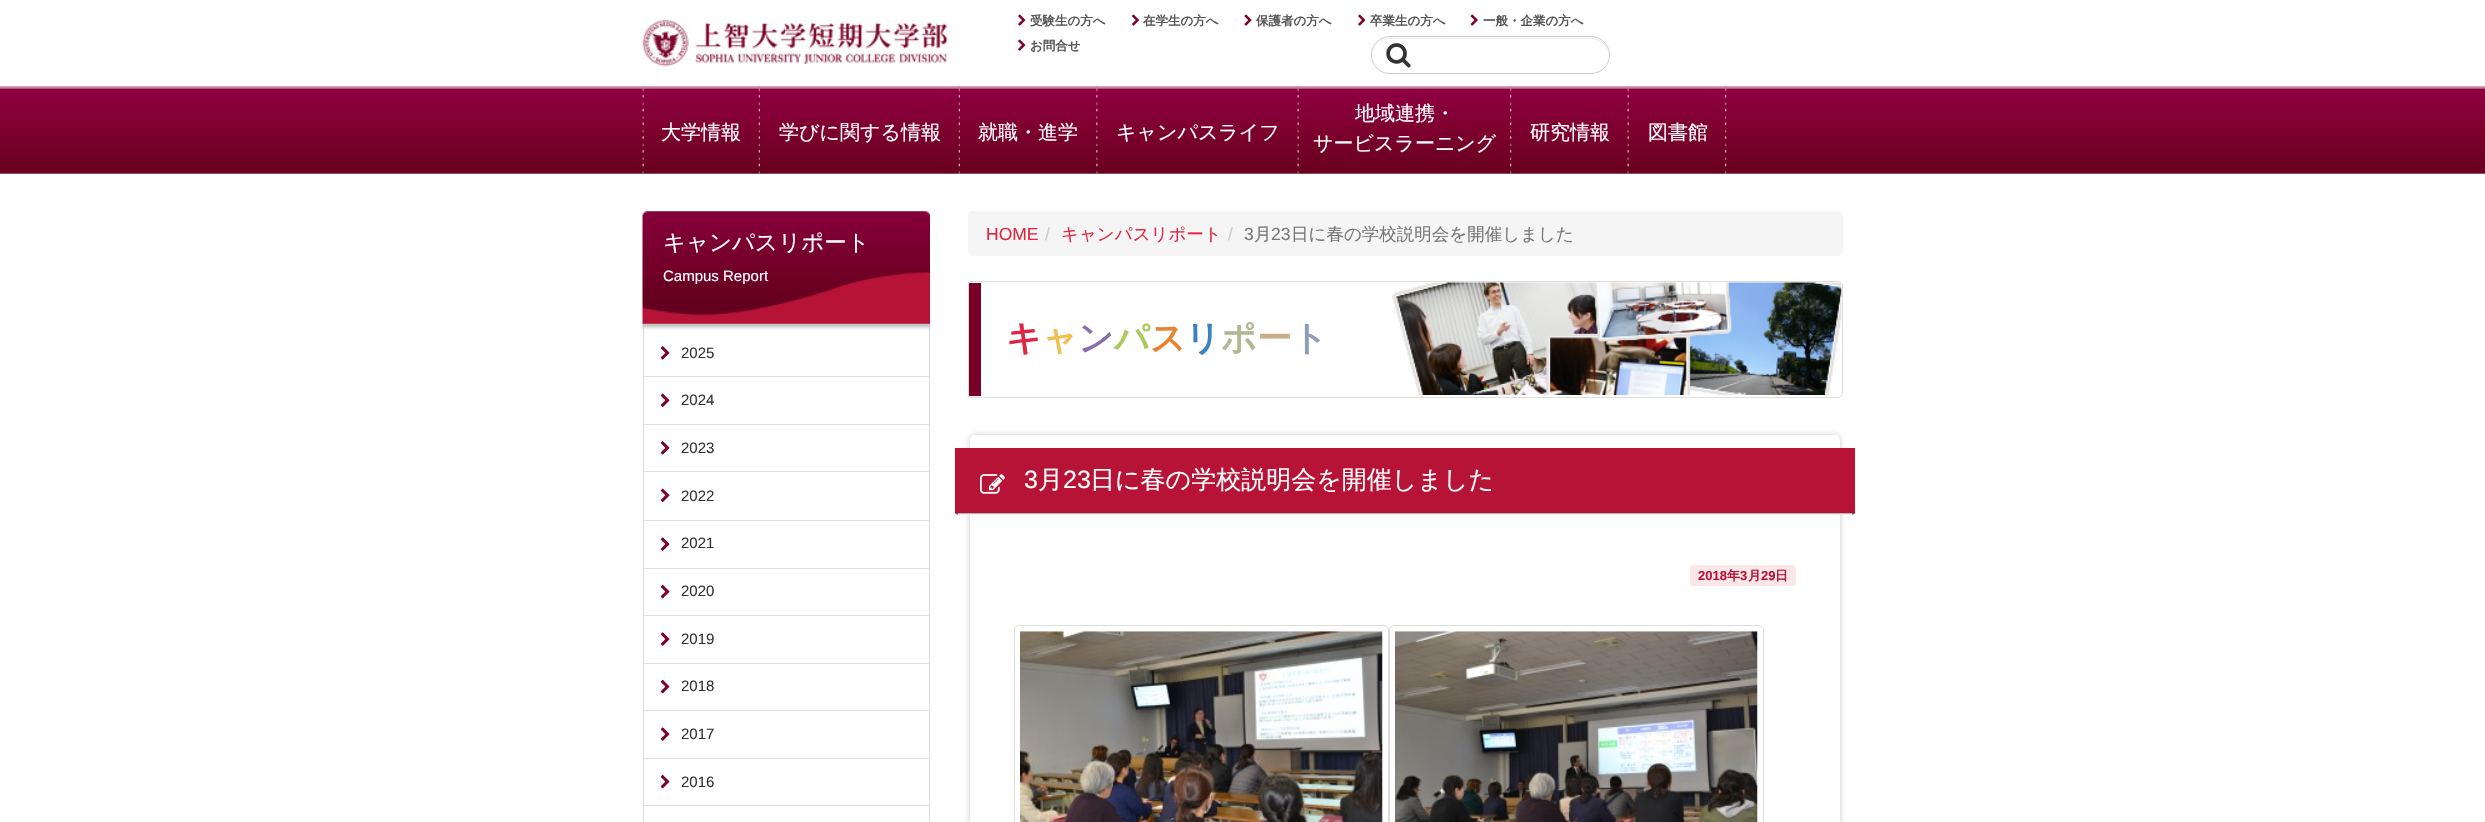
static SkFont makeFont(const char* family, int weight, float size, bool italic = false) {
  SkFontStyle style(weight, SkFontStyle::kNormal_Width,
    italic ? SkFontStyle::kItalic_Slant : SkFontStyle::kUpright_Slant);
  SkFont result(fontMgr->matchFamilyStyle(family, style), size);
  result.setSubpixel(true);
  return result;
}

static void text(SkCanvas* c, const char* s, float x, float y, const SkFont& font, SkColor color) {
  SkPaint ink(SkColor4f::FromColor(color));
  ink.setAntiAlias(true);
  c->drawString(s, x, y, font, ink);
}

static void box(SkCanvas* c, float l, float t, float r, float b, SkColor color) {
  SkPaint ink(SkColor4f::FromColor(color));
  ink.setAntiAlias(true);
  c->drawRect(SkRect::MakeLTRB(l, t, r, b), ink);
}

static void roundBox(SkCanvas* c, float l, float t, float r, float b, float radius, SkColor color) {
  SkPaint ink(SkColor4f::FromColor(color));
  ink.setAntiAlias(true);
  c->drawRoundRect(SkRect::MakeLTRB(l, t, r, b), radius, radius, ink);
}

static void picture(SkCanvas* c, const char* path, float l, float t, float r, float b) {
  auto image = SkImages::DeferredFromEncodedData(SkData::MakeFromFileName(path));
  c->drawImageRect(image, SkRect::MakeLTRB(l, t, r, b), SkSamplingOptions());
}

void draw(SkCanvas* c) {
  SkPaint paint;
  paint.setAntiAlias(true);
  c->clear(0xffffffff);
  picture(c, "img_01.png", 642, 20, 948, 67);
  picture(c, "img_02.png", 1018, 14, 1026, 26);
  SkFont face1 = makeFont("WenQuanYi Zen Hei", 700, 12.5f);
  text(c, "受験生の方へ", 1030, 25, face1, 0xff555555);
  picture(c, "img_03.png", 1131, 14, 1139, 26);
  text(c, "在学生の方へ", 1143, 25, face1, 0xff555555);
  picture(c, "img_04.png", 1244, 14, 1252, 26);
  text(c, "保護者の方へ", 1256, 25, face1, 0xff555555);
  picture(c, "img_02.png", 1358, 14, 1366, 26);
  text(c, "卒業生の方へ", 1370, 25, face1, 0xff555555);
  picture(c, "img_05.png", 1470, 14, 1478, 26);
  text(c, "一般・企業の方へ", 1483, 25, face1, 0xff555555);
  picture(c, "img_02.png", 1018, 39, 1026, 51);
  text(c, "お問合せ", 1030, 50, face1, 0xff555555);
  paint.setColor(0xffececec);
  c->drawPath(SkPathBuilder().moveTo(1390, 39).lineTo(1591, 39).cubicTo(1601, 39, 1609, 47, 1609, 56).cubicTo(1609, 46, 1601, 38, 1592, 38).lineTo(1390, 38).cubicTo(1385, 38, 1380, 40, 1377, 44).cubicTo(1380, 41, 1385, 39, 1390, 39).close().detach(), paint);
  paint.setStyle(SkPaint::kStroke_Style);
  paint.setStrokeWidth(1);
  paint.setColor(0xffcccccc);
  c->drawRoundRect(SkRect::MakeLTRB(1371.5f, 36.5f, 1609.5f, 73.5f), 18.5f, 18.5f, paint);
  picture(c, "img_06.png", 1386, 43, 1411, 68);
  picture(c, "img_07.png", 0, 86, 2485, 174);
  picture(c, "img_08.png", 642, 86, 644, 174);
  picture(c, "img_09.png", 758, 86, 760, 174);
  SkFont face2 = makeFont("WenQuanYi Zen Hei", 500, 20);
  text(c, "大学情報", 661, 139, face2, 0xffffffff);
  picture(c, "img_10.png", 958, 86, 960, 174);
  text(c, "学びに関する情報", 779, 139, face2, 0xffffffff);
  picture(c, "img_11.png", 1096, 86, 1098, 174);
  text(c, "就職・進学", 978, 139, face2, 0xffffffff);
  picture(c, "img_08.png", 1297, 86, 1299, 174);
  text(c, "キャンパスライフ", 1116, 139, face2, 0xffffffff);
  picture(c, "img_12.png", 1510, 86, 1512, 174);
  text(c, "地域連携・", 1355, 120, face2, 0xffffffff);
  text(c, "サービスラーニング", 1313, 150, face2, 0xffffffff);
  picture(c, "img_08.png", 1627, 86, 1629, 174);
  text(c, "研究情報", 1530, 139, face2, 0xffffffff);
  picture(c, "img_13.png", 1725, 86, 1727, 174);
  text(c, "図書館", 1648, 139, face2, 0xffffffff);
  picture(c, "img_14.png", 642, 211, 930, 330);
  SkFont face3 = makeFont("WenQuanYi Zen Hei", 500, 22.5f);
  text(c, "キャンパスリポート", 663, 250, face3, 0xffffffff);
  SkFont face4 = makeFont("Liberation Sans", 400, 15);
  text(c, "Campus Report", 663, 281, face4, 0xffffffff);
  box(c, 929, 330, 930, 822, 0xffdddddd);
  box(c, 643, 330, 644, 822, 0xffdddddd);
  box(c, 644, 376, 929, 377, 0xffdddddd);
  picture(c, "img_15.png", 660, 346, 670, 360);
  text(c, "2025", 681, 358, face4, 0xff333333);
  box(c, 644, 424, 929, 425, 0xffdddddd);
  picture(c, "img_16.png", 660, 393, 670, 408);
  text(c, "2024", 681, 405, face4, 0xff333333);
  box(c, 644, 471, 929, 472, 0xffdddddd);
  picture(c, "img_15.png", 660, 441, 670, 455);
  text(c, "2023", 681, 453, face4, 0xff333333);
  box(c, 644, 520, 929, 521, 0xffdddddd);
  picture(c, "img_16.png", 660, 488, 670, 503);
  text(c, "2022", 681, 501, face4, 0xff333333);
  box(c, 644, 568, 929, 569, 0xffdddddd);
  picture(c, "img_17.png", 660, 537, 670, 551);
  text(c, "2021", 681, 548, face4, 0xff333333);
  box(c, 644, 615, 929, 616, 0xffdddddd);
  picture(c, "img_18.png", 660, 584, 670, 599);
  text(c, "2020", 681, 596, face4, 0xff333333);
  box(c, 644, 663, 929, 664, 0xffdddddd);
  picture(c, "img_17.png", 660, 632, 670, 646);
  text(c, "2019", 681, 644, face4, 0xff333333);
  box(c, 644, 710, 929, 711, 0xffdddddd);
  picture(c, "img_18.png", 660, 679, 670, 694);
  text(c, "2018", 681, 691, face4, 0xff333333);
  box(c, 644, 758, 929, 759, 0xffdddddd);
  picture(c, "img_17.png", 660, 727, 670, 741);
  text(c, "2017", 681, 739, face4, 0xff333333);
  box(c, 644, 805, 929, 806, 0xffdddddd);
  picture(c, "img_18.png", 660, 774, 670, 789);
  text(c, "2016", 681, 787, face4, 0xff333333);
  roundBox(c, 968, 211, 1843, 256, 5, 0xfff5f5f5);
  SkFont face5 = makeFont("Liberation Sans", 400, 17.5f);
  text(c, "HOME", 986, 240, face5, 0xffe02441);
  text(c, "/", 1045, 240, face5, 0xffcccccc);
  SkFont face6 = makeFont("WenQuanYi Zen Hei", 500, 17.5f);
  text(c, "キャンパスリポート", 1061, 240, face6, 0xffe02441);
  text(c, "/", 1228, 240, face5, 0xffcccccc);
  text(c, "3", 1244, 240, face5, 0xff777777);
  text(c, "月", 1254, 240, face6, 0xff777777);
  text(c, "23", 1271, 240, face5, 0xff777777);
  text(c, "日に春の学校説明会を開催しました", 1291, 240, face6, 0xff777777);
  picture(c, "img_19.png", 1392, 282, 1842, 395);
  paint.setColor(0xffdddddd);
  c->drawPath(SkPathBuilder().moveTo(968.5f, 281.5f).lineTo(1838, 281.5f).cubicTo(1840.5f, 281.5f, 1842.5f, 283.5f, 1842.5f, 286).lineTo(1842.5f, 393).cubicTo(1842.5f, 395.5f, 1840.5f, 397.5f, 1838, 397.5f).lineTo(968.5f, 397.5f).close().detach(), paint);
  box(c, 969, 283, 981, 396, 0xff780026);
  SkFont face7 = makeFont("WenQuanYi Zen Hei", 700, 35);
  text(c, "キ", 1006, 350, face7, 0xffe02441);
  text(c, "ャ", 1042, 350, face7, 0xfff1be4d);
  text(c, "ン", 1078, 350, face7, 0xff856eaa);
  text(c, "パ", 1114, 350, face7, 0xffaaca5d);
  text(c, "ス", 1150, 350, face7, 0xffe8822e);
  text(c, "リ", 1185, 350, face7, 0xff3c82bf);
  text(c, "ポ", 1221, 350, face7, 0xffafb892);
  text(c, "ー", 1257, 350, face7, 0xffc8ac88);
  text(c, "ト", 1292, 350, face7, 0xff8e9cb9);
  paint.setStyle(SkPaint::kFill_Style);
  paint.setColor(0x4d000000);
  paint.setMaskFilter(SkMaskFilter::MakeBlur(kNormal_SkBlurStyle, 0.5f));
  c->drawRect(SkRect::MakeLTRB(955, 449, 1855, 514), paint);
  paint.setMaskFilter(nullptr);
  c->save();
  c->clipPath(SkPathBuilder(SkPathFillType::kEvenOdd).moveTo(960, 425).lineTo(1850, 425).lineTo(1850, 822).lineTo(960, 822).close().moveTo(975, 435).lineTo(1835, 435).cubicTo(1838, 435, 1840, 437, 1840, 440).lineTo(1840, 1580).cubicTo(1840, 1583, 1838, 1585, 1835, 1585).lineTo(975, 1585).cubicTo(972, 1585, 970, 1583, 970, 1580).lineTo(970, 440).cubicTo(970, 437, 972, 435, 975, 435).close().detach(), true);
  paint.setColor(0xffcccccc);
  paint.setMaskFilter(SkMaskFilter::MakeBlur(kNormal_SkBlurStyle, 3));
  c->drawRoundRect(SkRect::MakeLTRB(970, 435, 1840, 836), 5, 5, paint);
  paint.setMaskFilter(nullptr);
  c->restore();
  box(c, 955, 448, 1855, 513, 0xffb61336);
  picture(c, "img_20.png", 980, 474, 1005, 494);
  SkFont face8 = makeFont("Liberation Sans", 400, 25);
  text(c, "3", 1024, 488, face8, 0xffffffff);
  SkFont face9 = makeFont("WenQuanYi Zen Hei", 500, 25);
  text(c, "月", 1038, 488, face9, 0xffffffff);
  text(c, "23", 1063, 488, face8, 0xffffffff);
  text(c, "日に春の学校説明会を開催しました", 1090, 488, face9, 0xffffffff);
  paint.setColor(0xff871616);
  c->drawPath(SkPathBuilder().moveTo(955, 512.5f).lineTo(957.5f, 512.5f).lineTo(957.5f, 515).close().detach(), paint);
  c->drawPath(SkPathBuilder().moveTo(1852.5f, 512.5f).lineTo(1855, 512.5f).lineTo(1852.5f, 515).close().detach(), paint);
  roundBox(c, 1690, 565, 1796, 586, 3, 0xfffbe7e7);
  SkFont face10 = makeFont("Liberation Sans", 700, 13);
  text(c, "2018", 1698, 580, face10, 0xffb61336);
  SkFont face11 = makeFont("WenQuanYi Zen Hei", 700, 13);
  text(c, "年", 1727, 580, face11, 0xffb61336);
  text(c, "3", 1740, 580, face10, 0xffb61336);
  text(c, "月", 1748, 580, face11, 0xffb61336);
  text(c, "29", 1761, 580, face10, 0xffb61336);
  text(c, "日", 1775, 580, face11, 0xffb61336);
  paint.setStyle(SkPaint::kStroke_Style);
  paint.setColor(0xffdddddd);
  c->drawRoundRect(SkRect::MakeLTRB(1014.5f, 625.5f, 1388.5f, 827.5f), 4.5f, 4.5f, paint);
  picture(c, "img_21.png", 1020, 631, 1383, 822);
  c->drawRoundRect(SkRect::MakeLTRB(1389.5f, 625.5f, 1763.5f, 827.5f), 4.5f, 4.5f, paint);
  picture(c, "img_22.png", 1395, 631, 1758, 822);
}
